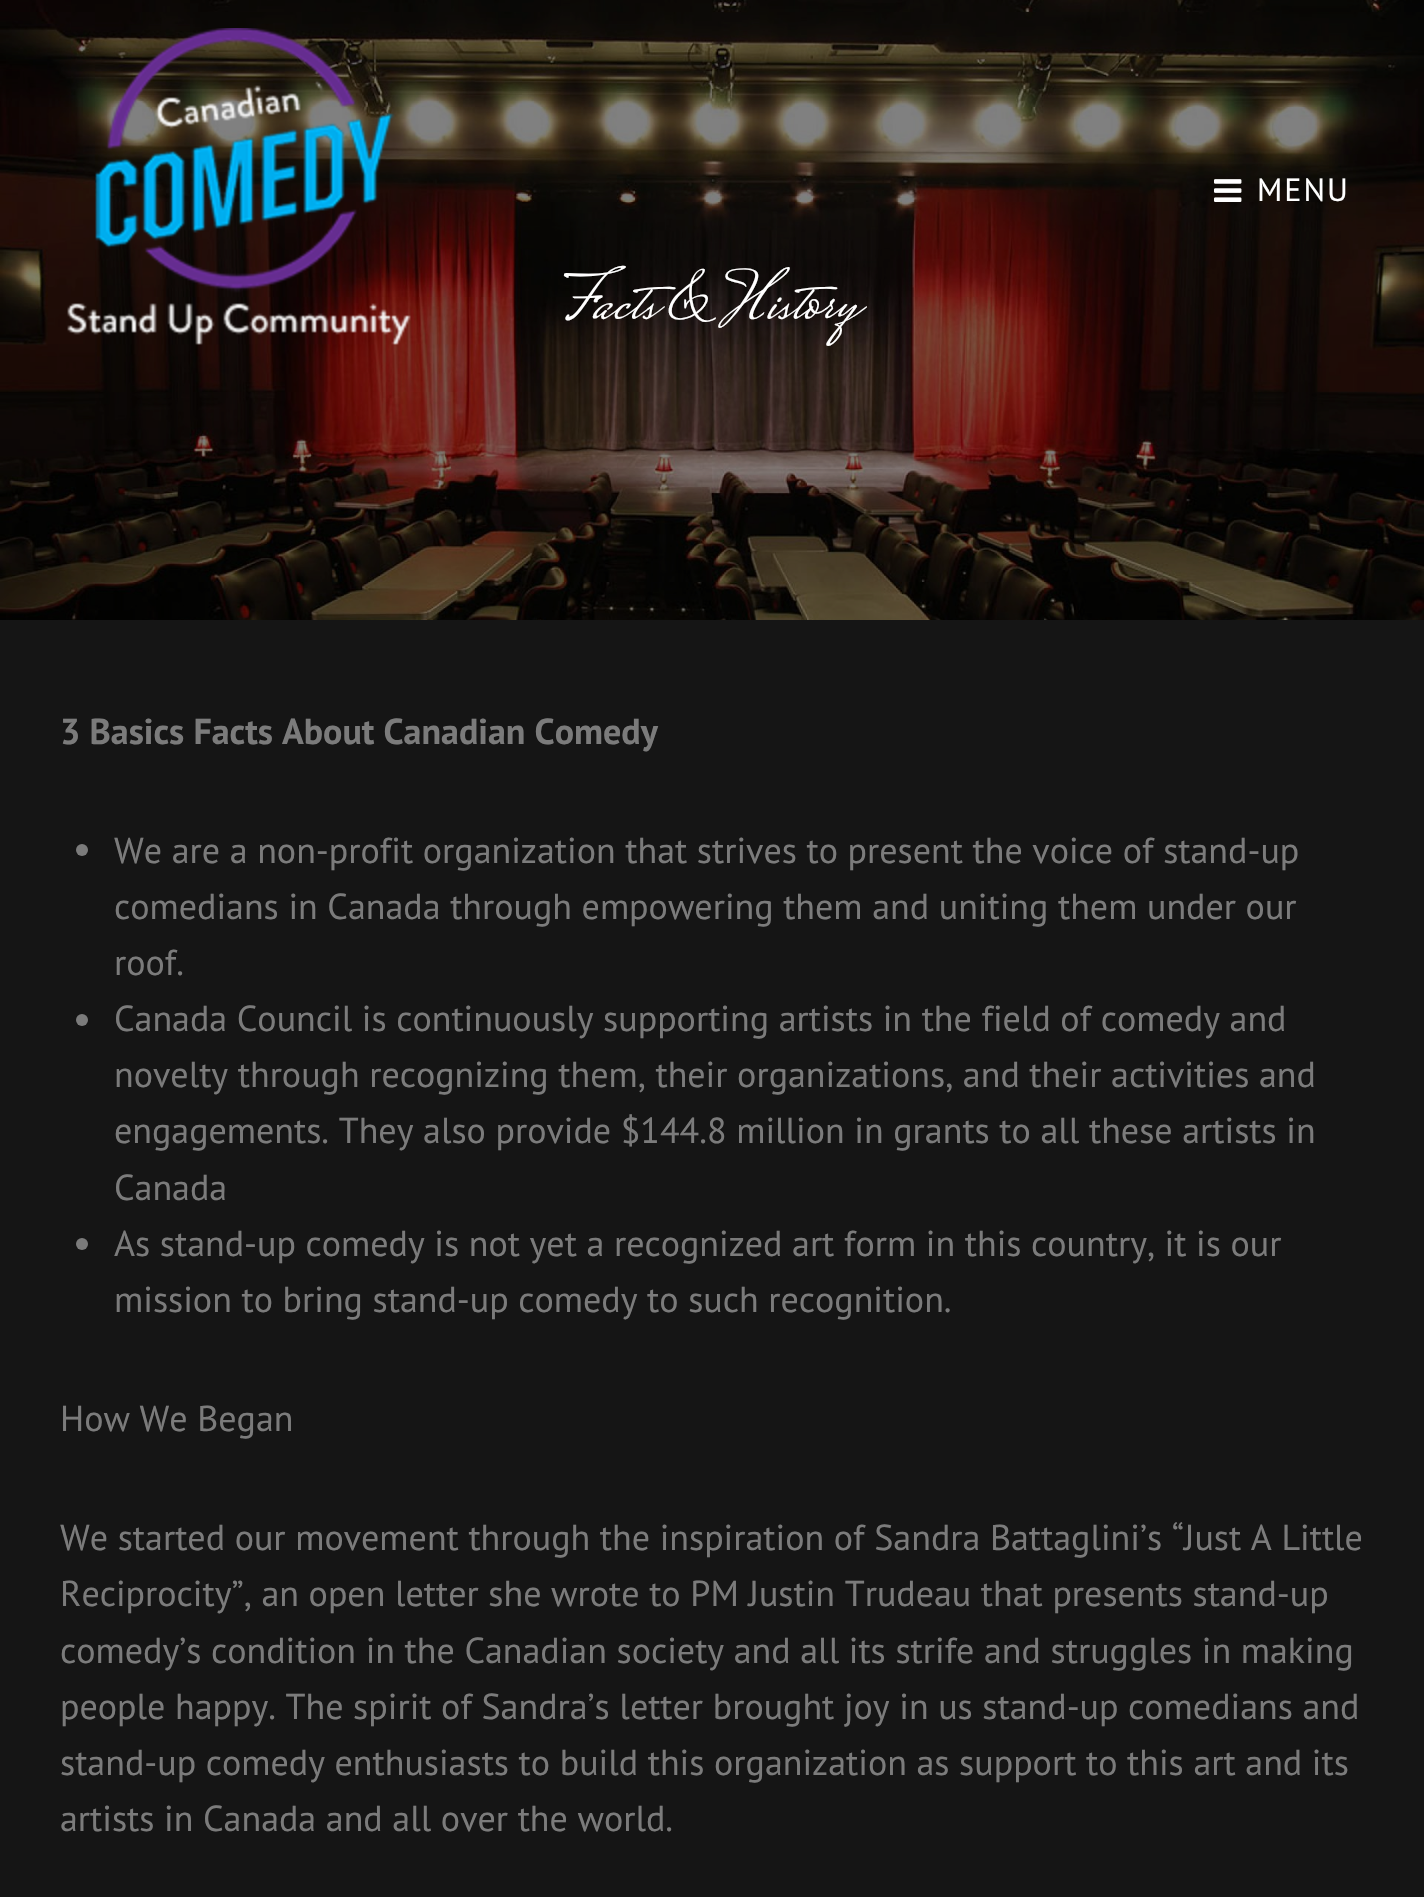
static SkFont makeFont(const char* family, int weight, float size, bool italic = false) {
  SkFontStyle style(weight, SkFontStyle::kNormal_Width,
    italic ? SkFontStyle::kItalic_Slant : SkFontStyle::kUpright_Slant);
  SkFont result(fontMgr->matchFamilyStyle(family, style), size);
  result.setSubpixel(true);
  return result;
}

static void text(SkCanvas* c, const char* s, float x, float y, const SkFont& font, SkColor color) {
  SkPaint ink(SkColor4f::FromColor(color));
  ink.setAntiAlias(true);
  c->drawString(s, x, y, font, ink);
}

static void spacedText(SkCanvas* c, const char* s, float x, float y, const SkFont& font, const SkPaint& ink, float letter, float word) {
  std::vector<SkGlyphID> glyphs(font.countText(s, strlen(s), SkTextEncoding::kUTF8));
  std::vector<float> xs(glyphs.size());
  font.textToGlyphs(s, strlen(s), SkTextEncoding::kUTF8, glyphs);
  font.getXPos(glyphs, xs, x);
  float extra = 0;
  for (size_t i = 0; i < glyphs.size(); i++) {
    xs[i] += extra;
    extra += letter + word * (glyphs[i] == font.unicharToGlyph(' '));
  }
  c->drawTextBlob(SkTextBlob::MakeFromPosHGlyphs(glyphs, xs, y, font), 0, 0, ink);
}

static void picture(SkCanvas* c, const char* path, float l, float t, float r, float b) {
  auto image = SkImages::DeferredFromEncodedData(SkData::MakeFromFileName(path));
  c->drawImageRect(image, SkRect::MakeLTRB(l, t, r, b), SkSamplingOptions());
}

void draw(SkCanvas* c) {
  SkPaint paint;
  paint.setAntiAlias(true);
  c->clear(0xff151515);
  picture(c, "img_03.png", 0, 0, 1424, 620);
  picture(c, "img_01.png", 67, 28, 411, 345);
  picture(c, "img_02.png", 1214, 179, 1242, 202);
  SkFont face1 = makeFont("PT Sans", 400, 32);
  paint.setColor(0xffffffff);
  spacedText(c, "MENU", 1257, 201, face1, paint, 2, 0);
  SkFont face2 = makeFont("Mrs Saint Delafield", 400, 68);
  text(c, "Facts & History", 565, 318, face2, 0xffffffff);
  SkFont face3 = makeFont("PT Sans", 700, 36);
  text(c, "3 Basics Facts About Canadian Comedy", 60, 744, face3, 0xff7b7b7b);
  paint.setColor(0xff7b7b7b);
  c->drawCircle(82, 850, 6, paint);
  SkFont face4 = makeFont("PT Sans", 400, 36);
  text(c, "We are a non-profit organization that strives to present the voice of stand-up", 114, 863, face4, 0xff7b7b7b);
  text(c, "comedians in Canada through empowering them and uniting them under our", 114, 919, face4, 0xff7b7b7b);
  text(c, "roof.", 114, 975, face4, 0xff7b7b7b);
  c->drawCircle(82, 1020, 6, paint);
  text(c, "Canada Council is continuously supporting artists in the field of comedy and", 114, 1031, face4, 0xff7b7b7b);
  text(c, "novelty through recognizing them, their organizations, and their activities and", 114, 1087, face4, 0xff7b7b7b);
  text(c, "engagements. They also provide $144.8 million in grants to all these artists in", 114, 1143, face4, 0xff7b7b7b);
  text(c, "Canada", 114, 1200, face4, 0xff7b7b7b);
  c->drawCircle(82, 1244, 6, paint);
  text(c, "As stand-up comedy is not yet a recognized art form in this country, it is our", 114, 1256, face4, 0xff7b7b7b);
  text(c, "mission to bring stand-up comedy to such recognition.", 114, 1312, face4, 0xff7b7b7b);
  text(c, "How We Began", 60, 1431, face4, 0xff7b7b7b);
  text(c, "We started our movement through the inspiration of Sandra Battaglini’s “Just A Little", 60, 1550, face4, 0xff7b7b7b);
  text(c, "Reciprocity”, an open letter she wrote to PM Justin Trudeau that presents stand-up", 60, 1606, face4, 0xff7b7b7b);
  text(c, "comedy’s condition in the Canadian society and all its strife and struggles in making", 60, 1663, face4, 0xff7b7b7b);
  text(c, "people happy. The spirit of Sandra’s letter brought joy in us stand-up comedians and", 60, 1719, face4, 0xff7b7b7b);
  text(c, "stand-up comedy enthusiasts to build this organization as support to this art and its", 60, 1775, face4, 0xff7b7b7b);
  text(c, "artists in Canada and all over the world.", 60, 1831, face4, 0xff7b7b7b);
}
